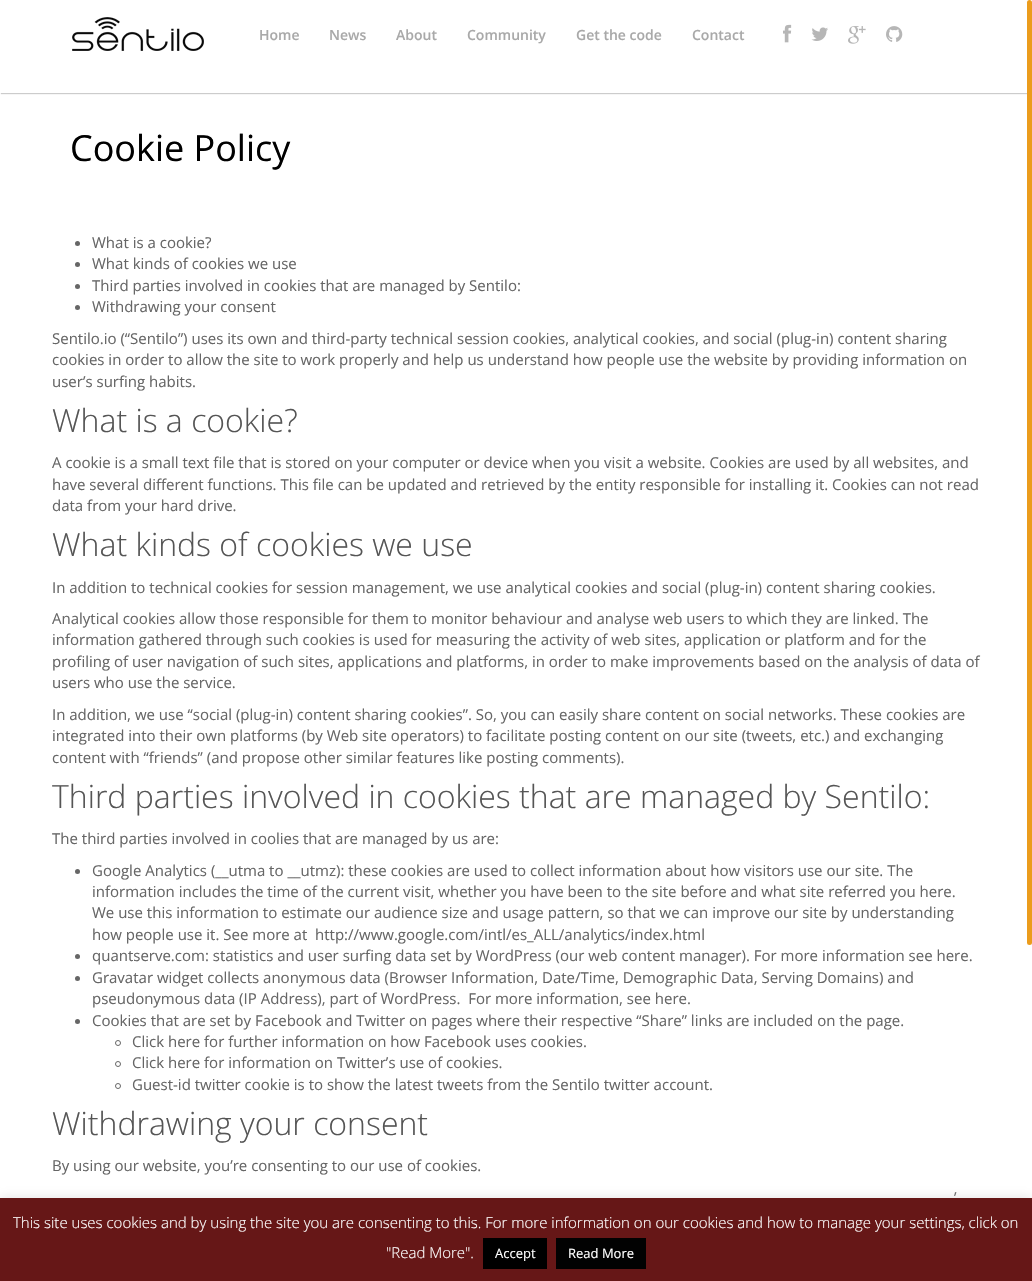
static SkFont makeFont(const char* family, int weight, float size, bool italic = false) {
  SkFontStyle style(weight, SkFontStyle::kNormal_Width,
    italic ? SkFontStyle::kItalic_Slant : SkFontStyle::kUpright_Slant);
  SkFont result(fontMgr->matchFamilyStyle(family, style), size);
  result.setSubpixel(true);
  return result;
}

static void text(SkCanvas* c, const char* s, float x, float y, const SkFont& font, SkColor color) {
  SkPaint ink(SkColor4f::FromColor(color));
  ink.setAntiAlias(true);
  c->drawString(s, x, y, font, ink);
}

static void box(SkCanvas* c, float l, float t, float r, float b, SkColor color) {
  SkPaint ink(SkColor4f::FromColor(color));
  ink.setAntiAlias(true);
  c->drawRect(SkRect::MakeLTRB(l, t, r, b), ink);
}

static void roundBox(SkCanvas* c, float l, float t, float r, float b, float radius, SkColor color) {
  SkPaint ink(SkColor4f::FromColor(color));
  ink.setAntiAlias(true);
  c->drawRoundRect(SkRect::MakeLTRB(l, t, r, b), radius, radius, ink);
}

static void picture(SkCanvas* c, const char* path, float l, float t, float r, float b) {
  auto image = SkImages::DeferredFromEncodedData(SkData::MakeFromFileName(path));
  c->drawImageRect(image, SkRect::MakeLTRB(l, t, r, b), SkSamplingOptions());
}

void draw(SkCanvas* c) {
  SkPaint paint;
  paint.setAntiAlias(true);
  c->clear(0xffffffff);
  c->save();
  c->clipRect(SkRect::MakeLTRB(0, 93, 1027, 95));
  paint.setColor(0xffcccccc);
  paint.setMaskFilter(SkMaskFilter::MakeBlur(kNormal_SkBlurStyle, 0.5f));
  c->drawRect(SkRect::MakeLTRB(1, 1, 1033, 94), paint);
  paint.setMaskFilter(nullptr);
  c->restore();
  picture(c, "img_01.png", 72, 17, 204, 51);
  SkFont face1 = makeFont("Open Sans", 600, 14);
  text(c, "Home", 259, 40, face1, 0xffa9a9a9);
  text(c, "News", 329, 40, face1, 0xffa9a9a9);
  text(c, "About", 396, 40, face1, 0xffa9a9a9);
  text(c, "Community", 467, 40, face1, 0xffa9a9a9);
  text(c, "Get the code", 576, 40, face1, 0xffa9a9a9);
  text(c, "Contact", 692, 40, face1, 0xffa9a9a9);
  picture(c, "img_02.png", 783, 24, 792, 43);
  picture(c, "img_03.png", 811, 27, 828, 41);
  picture(c, "img_04.png", 848, 26, 866, 44);
  picture(c, "img_05.png", 886, 26, 903, 42);
  SkFont face2 = makeFont("Open Sans", 400, 36);
  text(c, "Cookie Policy", 70, 161, face2, 0xff000000);
  paint.setColor(0xff666666);
  c->drawCircle(77.5f, 243.5f, 2.5f, paint);
  SkFont face3 = makeFont("Open Sans", 400, 15);
  text(c, "What is a cookie?", 92, 248, face3, 0xff666666);
  c->drawCircle(77.5f, 264.5f, 2.5f, paint);
  text(c, "What kinds of cookies we use", 92, 269, face3, 0xff666666);
  c->drawCircle(77.5f, 286.5f, 2.5f, paint);
  text(c, "Third parties involved in cookies that are managed by Sentilo:", 92, 291, face3, 0xff666666);
  c->drawCircle(77.5f, 307.5f, 2.5f, paint);
  text(c, "Withdrawing your consent", 92, 312, face3, 0xff666666);
  text(c, "Sentilo.io (“Sentilo”) uses its own and third-party technical session cookies, analytical cookies, and social (plug-in) content sharing", 52, 344, face3, 0xff666666);
  text(c, "cookies in order to allow the site to work properly and help us understand how people use the website by providing information on", 52, 365, face3, 0xff666666);
  text(c, "user’s surfing habits.", 52, 387, face3, 0xff666666);
  SkFont face4 = makeFont("Open Sans", 300, 32);
  text(c, "What is a cookie?", 52, 432, face4, 0xff555555);
  text(c, "A cookie is a small text file that is stored on your computer or device when you visit a website. Cookies are used by all websites, and", 52, 468, face3, 0xff666666);
  text(c, "have several different functions. This file can be updated and retrieved by the entity responsible for installing it. Cookies can not read", 52, 490, face3, 0xff666666);
  text(c, "data from your hard drive.", 52, 511, face3, 0xff666666);
  text(c, "What kinds of cookies we use", 52, 556, face4, 0xff555555);
  text(c, "In addition to technical cookies for session management, we use analytical cookies and social (plug-in) content sharing cookies.", 52, 593, face3, 0xff666666);
  text(c, "Analytical cookies allow those responsible for them to monitor behaviour and analyse web users to which they are linked. The", 52, 624, face3, 0xff666666);
  text(c, "information gathered through such cookies is used for measuring the activity of web sites, application or platform and for the", 52, 645, face3, 0xff666666);
  text(c, "profiling of user navigation of such sites, applications and platforms, in order to make improvements based on the analysis of data of", 52, 667, face3, 0xff666666);
  text(c, "users who use the service.", 52, 688, face3, 0xff666666);
  text(c, "In addition, we use “social (plug-in) content sharing cookies”. So, you can easily share content on social networks. These cookies are", 52, 720, face3, 0xff666666);
  text(c, "integrated into their own platforms (by Web site operators) to facilitate posting content on our site (tweets, etc.) and exchanging", 52, 741, face3, 0xff666666);
  text(c, "content with “friends” (and propose other similar features like posting comments).", 52, 763, face3, 0xff666666);
  text(c, "Third parties involved in cookies that are managed by Sentilo:", 52, 808, face4, 0xff555555);
  text(c, "The third parties involved in coolies that are managed by us are:", 52, 844, face3, 0xff666666);
  c->drawCircle(77.5f, 871.5f, 2.5f, paint);
  text(c, "Google Analytics (__utma to __utmz): these cookies are used to collect information about how visitors use our site. The", 92, 876, face3, 0xff666666);
  text(c, "information includes the time of the current visit, whether you have been to the site before and what site referred you here.", 92, 897, face3, 0xff666666);
  text(c, "We use this information to estimate our audience size and usage pattern, so that we can improve our site by understanding", 92, 918, face3, 0xff666666);
  text(c, "how people use it. See more at", 92, 940, face3, 0xff666666);
  text(c, "http://www.google.com/intl/es_ALL/analytics/index.html", 315, 940, face3, 0xff666666);
  c->drawCircle(77.5f, 956.5f, 2.5f, paint);
  text(c, "quantserve.com: statistics and user surfing data set by WordPress (our web content manager). For more information see here.", 92, 961, face3, 0xff666666);
  c->drawCircle(77.5f, 978.5f, 2.5f, paint);
  text(c, "Gravatar widget collects anonymous data (Browser Information, Date/Time, Demographic Data, Serving Domains) and", 92, 983, face3, 0xff666666);
  text(c, "pseudonymous data (IP Address), part of WordPress.  For more information, see here.", 92, 1004, face3, 0xff666666);
  c->drawCircle(77.5f, 1021.5f, 2.5f, paint);
  text(c, "Cookies that are set by Facebook and Twitter on pages where their respective “Share” links are included on the page.", 92, 1026, face3, 0xff666666);
  paint.setStyle(SkPaint::kStroke_Style);
  paint.setStrokeWidth(1);
  c->drawCircle(118, 1043, 2.5f, paint);
  text(c, "Click here for further information on how Facebook uses cookies.", 132, 1047, face3, 0xff666666);
  c->drawCircle(118, 1064, 2.5f, paint);
  text(c, "Click here for information on Twitter’s use of cookies.", 132, 1068, face3, 0xff666666);
  c->drawCircle(118, 1086, 2.5f, paint);
  text(c, "Guest-id twitter cookie is to show the latest tweets from the Sentilo twitter account.", 132, 1090, face3, 0xff666666);
  text(c, "Withdrawing your consent", 52, 1135, face4, 0xff555555);
  text(c, "By using our website, you’re consenting to our use of cookies.", 52, 1171, face3, 0xff666666);
  text(c, "’", 954, 1203, face3, 0xff666666);
  box(c, 1027, 93, 1032, 94, 0x4dffffff);
  roundBox(c, 1027, 0, 1032, 945, 2.5f, 0xffeb9c1c);
  paint.setStyle(SkPaint::kFill_Style);
  paint.setColor(0x4dacabab);
  paint.setMaskFilter(SkMaskFilter::MakeBlur(kNormal_SkBlurStyle, 5));
  c->drawRect(SkRect::MakeLTRB(0, 1197, 1032, 1280), paint);
  paint.setMaskFilter(nullptr);
  box(c, 0, 1198, 1032, 1281, 0xff661717);
  SkFont face5 = makeFont("Open Sans", 300, 15);
  text(c, "This site uses cookies and by using the site you are consenting to this. For more information on our cookies and how to manage your settings, click on", 13, 1228, face5, 0xffffffff);
  text(c, "\"Read More\".", 386, 1258, face5, 0xffffffff);
  box(c, 483, 1238, 547, 1269, 0xff000000);
  SkFont face6 = makeFont("Open Sans", 400, 13);
  text(c, "Accept", 495, 1258, face6, 0xffffffff);
  box(c, 556, 1238, 646, 1269, 0xff020202);
  text(c, "Read More", 568, 1258, face6, 0xffffffff);
}
